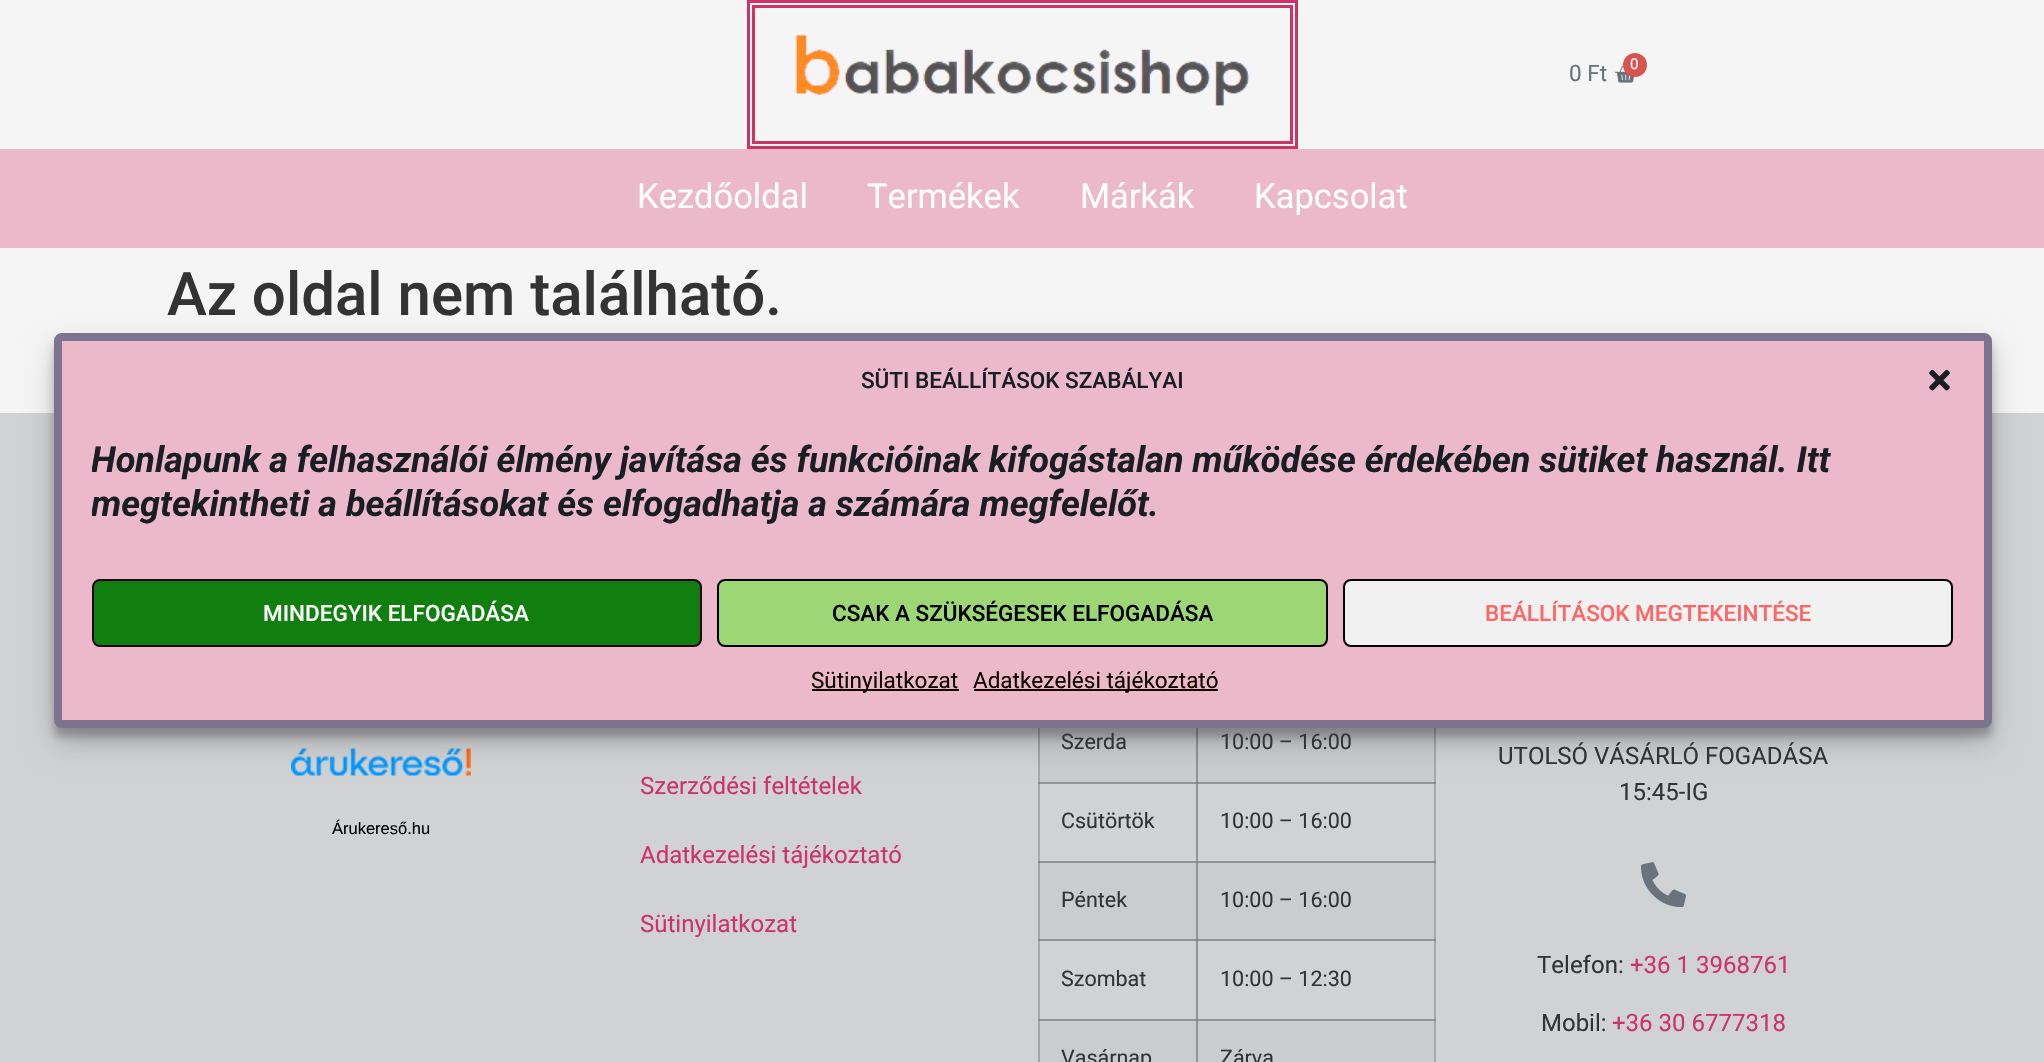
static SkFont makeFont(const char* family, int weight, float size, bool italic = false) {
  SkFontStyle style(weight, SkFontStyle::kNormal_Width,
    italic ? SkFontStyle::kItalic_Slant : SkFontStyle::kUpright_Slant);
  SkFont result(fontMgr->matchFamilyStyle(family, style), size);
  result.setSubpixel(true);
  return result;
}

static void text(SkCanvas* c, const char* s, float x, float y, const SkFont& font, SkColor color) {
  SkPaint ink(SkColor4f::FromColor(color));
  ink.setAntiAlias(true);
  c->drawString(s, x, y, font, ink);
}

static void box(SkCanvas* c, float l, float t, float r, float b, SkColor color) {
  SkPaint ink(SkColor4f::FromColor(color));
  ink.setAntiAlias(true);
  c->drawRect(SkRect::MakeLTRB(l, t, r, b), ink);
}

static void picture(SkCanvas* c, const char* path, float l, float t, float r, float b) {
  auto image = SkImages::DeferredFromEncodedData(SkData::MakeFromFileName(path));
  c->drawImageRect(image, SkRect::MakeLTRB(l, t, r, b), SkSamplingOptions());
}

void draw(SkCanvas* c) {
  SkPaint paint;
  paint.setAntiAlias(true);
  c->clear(0xfff5f5f5);
  paint.setStyle(SkPaint::kStroke_Style);
  paint.setStrokeWidth(3);
  paint.setColor(0xffcc3366);
  c->drawRect(SkRect::MakeLTRB(748.5f, 1.5f, 1296.5f, 147.5f), paint);
  c->drawRect(SkRect::MakeLTRB(753.5f, 6.5f, 1291.5f, 142.5f), paint);
  picture(c, "img_01.png", 795, 35, 1250, 106);
  SkFont face1 = makeFont("Roboto", 400, 22.5f);
  text(c, "0 Ft", 1569, 81, face1, 0xff69727d);
  picture(c, "img_02.png", 1615, 66, 1634, 83);
  paint.setStyle(SkPaint::kFill_Style);
  paint.setColor(0xffd9534f);
  c->drawCircle(1635, 65, 12, paint);
  SkFont face2 = makeFont("Roboto", 400, 15);
  text(c, "0", 1630, 69, face2, 0xffffffff);
  box(c, 0, 149, 2044, 248, 0xffecb9cb);
  SkFont face3 = makeFont("Roboto", 400, 34.5f);
  text(c, "Kezdőoldal", 637, 208, face3, 0xffffffff);
  text(c, "Termékek", 867, 208, face3, 0xffffffff);
  text(c, "Márkák", 1080, 208, face3, 0xffffffff);
  text(c, "Kapcsolat", 1254, 208, face3, 0xffffffff);
  SkFont face4 = makeFont("Roboto", 500, 60);
  text(c, "Az oldal nem található.", 167, 315, face4, 0xff333333);
  box(c, 0, 413, 2044, 1062, 0xffd0d2d3);
  box(c, 1434, 728, 1436, 1062, 0xffa8a9aa);
  picture(c, "img_04.png", 291, 748, 471, 776);
  box(c, 1040, 728, 1196, 782, 0xffcacccd);
  box(c, 1038, 782, 1040, 863, 0xffa8a9aa);
  box(c, 1038, 728, 1040, 783, 0xffa5a6a7);
  box(c, 1038, 783, 1197, 784, 0xff949595);
  box(c, 1196, 782, 1198, 863, 0xff949595);
  box(c, 1196, 783, 1436, 784, 0xff949595);
  box(c, 1196, 783, 1198, 784, 0xff858686);
  box(c, 1196, 782, 1197, 784, 0xff828282);
  box(c, 1196, 728, 1198, 783, 0xff939394);
  box(c, 1198, 728, 1434, 782, 0xffcacccd);
  paint.setColor(0x3b000000);
  paint.setMaskFilter(SkMaskFilter::MakeBlur(kNormal_SkBlurStyle, 4.5f));
  c->drawRoundRect(SkRect::MakeLTRB(54, 342, 1992, 737), 8, 8, paint);
  paint.setMaskFilter(nullptr);
  box(c, 1038, 783, 1040, 784, 0xff8a8b8b);
  box(c, 1434, 783, 1436, 784, 0xff8a8b8b);
  box(c, 1434, 782, 1436, 783, 0xff858686);
  box(c, 1038, 782, 1434, 783, 0xff939394);
  box(c, 1038, 782, 1040, 783, 0xff858585);
  box(c, 1196, 782, 1197, 783, 0xff818181);
  box(c, 1197, 782, 1198, 783, 0xff828282);
  paint.setColor(0x30000000);
  paint.setMaskFilter(SkMaskFilter::MakeBlur(kNormal_SkBlurStyle, 15));
  c->drawRoundRect(SkRect::MakeLTRB(54, 348, 1992, 743), 8, 8, paint);
  paint.setMaskFilter(nullptr);
  paint.setColor(0xffecb9cb);
  c->drawRoundRect(SkRect::MakeLTRB(58, 337, 1988, 724), 4, 4, paint);
  paint.setStyle(SkPaint::kStroke_Style);
  paint.setStrokeWidth(8);
  paint.setColor(0xff7c748e);
  c->drawRoundRect(SkRect::MakeLTRB(58, 337, 1988, 724), 4, 4, paint);
  SkFont face5 = makeFont("Roboto", 500, 22.5f);
  text(c, "SÜTI BEÁLLÍTÁSOK SZABÁLYAI", 861, 388, face5, 0xff191e23);
  picture(c, "img_03.png", 1929, 369, 1950, 391);
  c->save();
  c->clipRect(SkRect::MakeLTRB(92, 428, 1955, 549));
  SkFont face6 = makeFont("Roboto", 700, 36, true);
  text(c, "Honlapunk a felhasználói élmény javítása és funkcióinak kifogástalan működése érdekében sütiket használ. Itt", 91, 472, face6, 0xff191e23);
  text(c, "megtekintheti a beállításokat és elfogadhatja a számára megfelelőt.", 91, 516, face6, 0xff191e23);
  c->restore();
  paint.setStyle(SkPaint::kFill_Style);
  paint.setColor(0xff107f10);
  c->drawRoundRect(SkRect::MakeLTRB(93, 580, 701, 646), 7, 7, paint);
  paint.setStyle(SkPaint::kStroke_Style);
  paint.setStrokeWidth(2);
  paint.setColor(0xff21061d);
  c->drawRoundRect(SkRect::MakeLTRB(93, 580, 701, 646), 7, 7, paint);
  text(c, "MINDEGYIK ELFOGADÁSA", 263, 621, face5, 0xffffffff);
  paint.setStyle(SkPaint::kFill_Style);
  paint.setColor(0xff9dd675);
  c->drawRoundRect(SkRect::MakeLTRB(718, 580, 1327, 646), 7, 7, paint);
  paint.setStyle(SkPaint::kStroke_Style);
  paint.setColor(0xff000000);
  c->drawRoundRect(SkRect::MakeLTRB(718, 580, 1327, 646), 7, 7, paint);
  text(c, "CSAK A SZÜKSÉGESEK ELFOGADÁSA", 832, 621, face5, 0xff000000);
  paint.setStyle(SkPaint::kFill_Style);
  paint.setColor(0xfff1f1f1);
  c->drawRoundRect(SkRect::MakeLTRB(1344, 580, 1952, 646), 7, 7, paint);
  paint.setStyle(SkPaint::kStroke_Style);
  paint.setColor(0xff000000);
  c->drawRoundRect(SkRect::MakeLTRB(1344, 580, 1952, 646), 7, 7, paint);
  text(c, "BEÁLLÍTÁSOK MEGTEKEINTÉSE", 1485, 621, face5, 0xffff6666);
  box(c, 812, 689, 959, 691, 0xff0f0902);
  text(c, "Sütinyilatkozat", 811, 688, face1, 0xff0f0902);
  box(c, 974, 689, 1218, 691, 0xff0f0902);
  text(c, "Adatkezelési tájékoztató", 973, 688, face1, 0xff0f0902);
  box(c, 1434, 861, 1436, 863, 0xff858686);
  box(c, 1038, 939, 1040, 1020, 0xffa8a9aa);
  box(c, 1196, 939, 1198, 1020, 0xff949595);
  box(c, 1434, 939, 1436, 941, 0xff858686);
  box(c, 1434, 1020, 1436, 1021, 0xff8a8b8b);
  box(c, 1434, 1019, 1436, 1020, 0xff858686);
  SkFont face7 = makeFont("Liberation Sans", 400, 16.5f);
  text(c, "Árukereső.hu", 332, 834, face7, 0xff000000);
  SkFont face8 = makeFont("Roboto", 400, 24);
  text(c, "Szerződési feltételek", 640, 794, face8, 0xffcc3366);
  text(c, "Adatkezelési tájékoztató", 640, 863, face8, 0xffcc3366);
  text(c, "Sütinyilatkozat", 640, 932, face8, 0xffcc3366);
  SkFont face9 = makeFont("Roboto", 400, 21.5f);
  text(c, "Szerda", 1061, 749, face9, 0xff333333);
  text(c, "10:00 – 16:00", 1220, 749, face9, 0xff333333);
  text(c, "Csütörtök", 1061, 828, face9, 0xff333333);
  text(c, "10:00 – 16:00", 1220, 828, face9, 0xff333333);
  box(c, 1040, 863, 1196, 939, 0xffcacccd);
  box(c, 1038, 861, 1040, 941, 0xffa5a6a7);
  box(c, 1038, 861, 1197, 863, 0xff939394);
  box(c, 1038, 861, 1040, 863, 0xff858585);
  box(c, 1196, 861, 1198, 941, 0xff939394);
  box(c, 1196, 861, 1197, 863, 0xff818181);
  box(c, 1038, 939, 1434, 941, 0xff939394);
  box(c, 1038, 939, 1040, 941, 0xff858585);
  box(c, 1196, 939, 1197, 941, 0xff818181);
  text(c, "Péntek", 1061, 907, face9, 0xff333333);
  box(c, 1198, 863, 1434, 939, 0xffcacccd);
  box(c, 1197, 861, 1434, 863, 0xff939394);
  box(c, 1197, 861, 1198, 863, 0xff828282);
  box(c, 1197, 939, 1198, 941, 0xff828282);
  text(c, "10:00 – 16:00", 1220, 907, face9, 0xff333333);
  text(c, "Szombat", 1061, 986, face9, 0xff333333);
  text(c, "10:00 – 12:30", 1220, 986, face9, 0xff333333);
  box(c, 1040, 1021, 1196, 1062, 0xffcacccd);
  box(c, 1038, 1019, 1040, 1062, 0xffa5a6a7);
  box(c, 1038, 1019, 1197, 1021, 0xff939394);
  box(c, 1038, 1020, 1040, 1021, 0xff8a8a8a);
  box(c, 1038, 1019, 1040, 1020, 0xff858585);
  box(c, 1196, 1019, 1198, 1062, 0xff939394);
  box(c, 1196, 1019, 1197, 1021, 0xff828282);
  text(c, "Vasárnap", 1061, 1065, face9, 0xff333333);
  box(c, 1198, 1021, 1434, 1062, 0xffcacccd);
  box(c, 1197, 1019, 1434, 1021, 0xff939394);
  box(c, 1197, 1019, 1198, 1021, 0xff858585);
  box(c, 1197, 1019, 1198, 1020, 0xff828282);
  text(c, "Zárva", 1220, 1065, face9, 0xff333333);
  text(c, "UTOLSÓ VÁSÁRLÓ FOGADÁSA", 1498, 764, face8, 0xff333333);
  text(c, "15:45-IG", 1619, 800, face8, 0xff333333);
  picture(c, "img_05.png", 1641, 862, 1686, 908);
  text(c, "Telefon:", 1537, 973, face8, 0xff333333);
  text(c, "+36 1 3968761", 1630, 973, face8, 0xffcc3366);
  text(c, "Mobil:", 1541, 1031, face8, 0xff333333);
  text(c, "+36 30 6777318", 1612, 1031, face8, 0xffcc3366);
}
